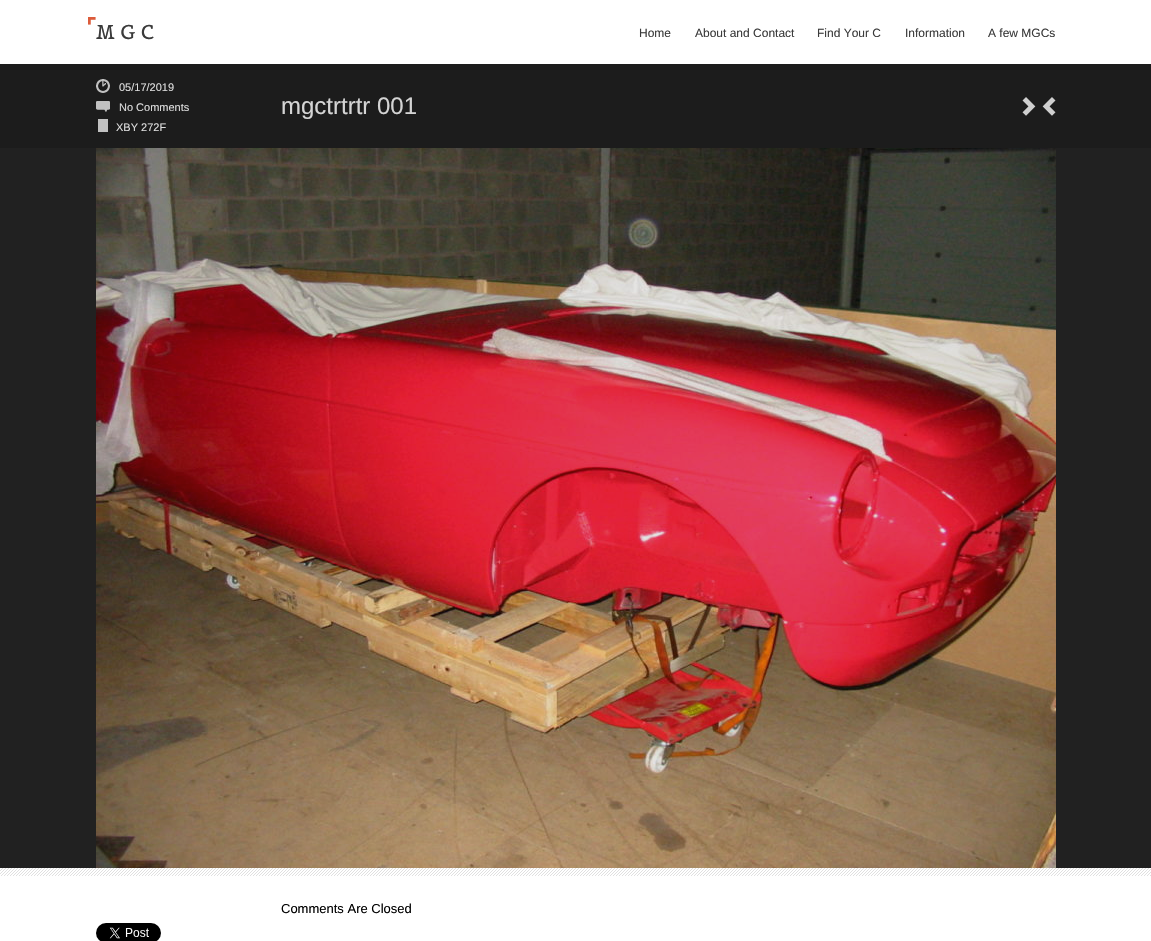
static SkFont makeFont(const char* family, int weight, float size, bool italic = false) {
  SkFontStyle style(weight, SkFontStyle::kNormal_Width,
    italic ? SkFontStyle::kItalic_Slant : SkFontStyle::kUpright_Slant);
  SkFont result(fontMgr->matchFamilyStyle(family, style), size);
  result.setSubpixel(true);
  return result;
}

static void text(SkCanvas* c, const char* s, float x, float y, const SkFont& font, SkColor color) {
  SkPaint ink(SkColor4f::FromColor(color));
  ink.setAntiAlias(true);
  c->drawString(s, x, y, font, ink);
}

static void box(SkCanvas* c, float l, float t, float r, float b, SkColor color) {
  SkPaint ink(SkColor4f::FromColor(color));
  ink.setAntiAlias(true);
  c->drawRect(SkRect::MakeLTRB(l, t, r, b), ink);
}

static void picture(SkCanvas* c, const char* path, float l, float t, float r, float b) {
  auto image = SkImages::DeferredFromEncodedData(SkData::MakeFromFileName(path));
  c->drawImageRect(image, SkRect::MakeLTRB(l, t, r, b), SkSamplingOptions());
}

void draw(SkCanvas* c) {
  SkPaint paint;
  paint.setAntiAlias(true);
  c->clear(0xffffffff);
  SkFont face1 = makeFont("Belgrano", 400, 20);
  text(c, "M G C", 96, 39, face1, 0xff3b3b3b);
  picture(c, "img_01.png", 88, 17, 96, 25);
  SkFont face2 = makeFont("Liberation Sans", 400, 12);
  text(c, "Home", 639, 37, face2, 0xff3b3b3b);
  text(c, "About and Contact", 695, 37, face2, 0xff3b3b3b);
  text(c, "Find Your C", 817, 37, face2, 0xff3b3b3b);
  text(c, "Information", 905, 37, face2, 0xff3b3b3b);
  text(c, "A few MGCs", 988, 37, face2, 0xff3b3b3b);
  box(c, 0, 64, 1151, 148, 0xff1c1c1c);
  picture(c, "img_02.png", 96, 79, 110, 93);
  SkFont face3 = makeFont("Liberation Sans", 400, 11);
  text(c, "05/17/2019", 119, 91, face3, 0xffdddddd);
  picture(c, "img_03.png", 96, 101, 110, 112);
  text(c, "No Comments", 119, 111, face3, 0xffdddddd);
  box(c, 98, 119, 108, 132, 0xffc1c1c1);
  text(c, "XBY 272F", 116, 131, face3, 0xffdddddd);
  SkFont face4 = makeFont("Liberation Sans", 400, 24);
  text(c, "mgctrtrtr 001", 281, 114, face4, 0xffd4d4d4);
  picture(c, "img_04.png", 1022, 97, 1036, 116);
  picture(c, "img_05.png", 1042, 97, 1056, 116);
  box(c, 0, 148, 1151, 868, 0xff212121);
  picture(c, "img_06.png", 96, 148, 1056, 868);
  picture(c, "img_07.png", 0, 868, 1151, 876);
  SkFont face5 = makeFont("Liberation Sans", 400, 13);
  text(c, "Comments Are Closed", 281, 913, face5, 0xff000000);
  picture(c, "img_08.png", 96, 923, 161, 941);
}
